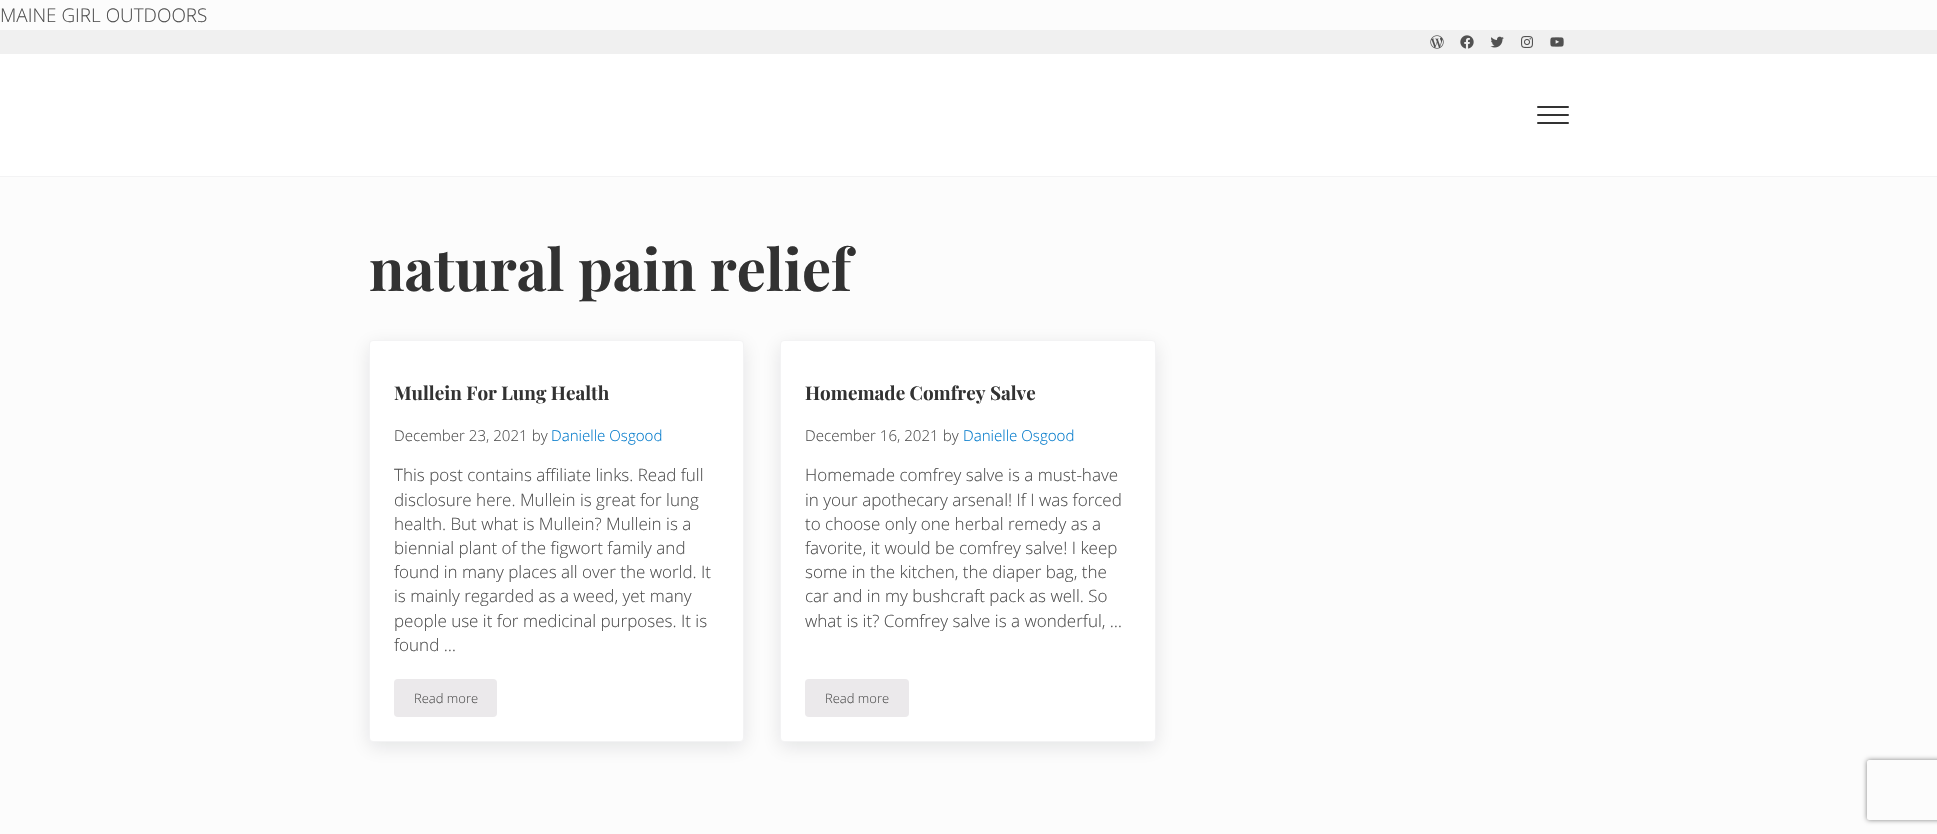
static SkFont makeFont(const char* family, int weight, float size, bool italic = false) {
  SkFontStyle style(weight, SkFontStyle::kNormal_Width,
    italic ? SkFontStyle::kItalic_Slant : SkFontStyle::kUpright_Slant);
  SkFont result(fontMgr->matchFamilyStyle(family, style), size);
  result.setSubpixel(true);
  return result;
}

static void text(SkCanvas* c, const char* s, float x, float y, const SkFont& font, SkColor color) {
  SkPaint ink(SkColor4f::FromColor(color));
  ink.setAntiAlias(true);
  c->drawString(s, x, y, font, ink);
}

static void box(SkCanvas* c, float l, float t, float r, float b, SkColor color) {
  SkPaint ink(SkColor4f::FromColor(color));
  ink.setAntiAlias(true);
  c->drawRect(SkRect::MakeLTRB(l, t, r, b), ink);
}

static void roundBox(SkCanvas* c, float l, float t, float r, float b, float radius, SkColor color) {
  SkPaint ink(SkColor4f::FromColor(color));
  ink.setAntiAlias(true);
  c->drawRoundRect(SkRect::MakeLTRB(l, t, r, b), radius, radius, ink);
}

static void picture(SkCanvas* c, const char* path, float l, float t, float r, float b) {
  auto image = SkImages::DeferredFromEncodedData(SkData::MakeFromFileName(path));
  c->drawImageRect(image, SkRect::MakeLTRB(l, t, r, b), SkSamplingOptions());
}

void draw(SkCanvas* c) {
  SkPaint paint;
  paint.setAntiAlias(true);
  c->clear(0xfffcfcfc);
  SkFont face1 = makeFont("Open Sans", 300, 18.9f);
  text(c, "MAINE GIRL OUTDOORS", 0, 22, face1, 0xff515151);
  box(c, 0, 30, 1937, 54, 0xfff0f0f0);
  picture(c, "img_01.png", 1430, 35, 1444, 49);
  picture(c, "img_02.png", 1460, 35, 1474, 49);
  picture(c, "img_03.png", 1490, 36, 1504, 48);
  picture(c, "img_04.png", 1521, 36, 1533, 48);
  picture(c, "img_05.png", 1550, 37, 1564, 47);
  box(c, 0, 54, 1937, 176, 0xffffffff);
  box(c, 0, 176, 1937, 177, 0xfff3f3f4);
  roundBox(c, 1537, 114, 1569, 116, 1, 0xff323232);
  roundBox(c, 1537, 106, 1569, 108, 1, 0xff323232);
  roundBox(c, 1537, 122, 1569, 124, 1, 0xff323232);
  SkFont face2 = makeFont("Playfair Display", 700, 57.75f);
  text(c, "natural pain relief", 369, 291, face2, 0xff323232);
  paint.setColor(0x1a0a141e);
  paint.setMaskFilter(SkMaskFilter::MakeBlur(kNormal_SkBlurStyle, 9.5f));
  c->drawRoundRect(SkRect::MakeLTRB(369, 345, 744, 747), 4, 4, paint);
  paint.setMaskFilter(nullptr);
  paint.setColor(0xffffffff);
  c->drawRoundRect(SkRect::MakeLTRB(369.5f, 340.5f, 743.5f, 741.5f), 3.5f, 3.5f, paint);
  paint.setStyle(SkPaint::kStroke_Style);
  paint.setStrokeWidth(1);
  paint.setColor(0xfff3f3f4);
  c->drawRoundRect(SkRect::MakeLTRB(369.5f, 340.5f, 743.5f, 741.5f), 3.5f, 3.5f, paint);
  SkFont face3 = makeFont("Playfair Display", 700, 18.9f);
  text(c, "Mullein For Lung Health", 394, 400, face3, 0xff323232);
  SkFont face4 = makeFont("Open Sans", 300, 15.1f);
  text(c, "December 23, 2021 by", 394, 441, face4, 0xff515151);
  text(c, "Danielle Osgood", 551, 441, face4, 0xff067ccc);
  SkFont face5 = makeFont("Open Sans", 300, 17);
  text(c, "This post contains affiliate links. Read full", 394, 481, face5, 0xff515151);
  text(c, "disclosure here. Mullein is great for lung", 394, 506, face5, 0xff515151);
  text(c, "health. But what is Mullein? Mullein is a", 394, 530, face5, 0xff515151);
  text(c, "biennial plant of the figwort family and", 394, 554, face5, 0xff515151);
  text(c, "found in many places all over the world. It", 394, 578, face5, 0xff515151);
  text(c, "is mainly regarded as a weed, yet many", 394, 602, face5, 0xff515151);
  text(c, "people use it for medicinal purposes. It is", 394, 627, face5, 0xff515151);
  text(c, "found …", 394, 651, face5, 0xff515151);
  roundBox(c, 394, 679, 497, 717, 4, 0xffebe9eb);
  SkFont face6 = makeFont("Open Sans", 300, 13);
  text(c, "Read more", 414, 703, face6, 0xff515151);
  paint.setStyle(SkPaint::kFill_Style);
  paint.setColor(0x1a0a141e);
  paint.setMaskFilter(SkMaskFilter::MakeBlur(kNormal_SkBlurStyle, 9.5f));
  c->drawRoundRect(SkRect::MakeLTRB(780, 345, 1156, 747), 4, 4, paint);
  paint.setMaskFilter(nullptr);
  paint.setColor(0xffffffff);
  c->drawRoundRect(SkRect::MakeLTRB(780.5f, 340.5f, 1155.5f, 741.5f), 3.5f, 3.5f, paint);
  paint.setStyle(SkPaint::kStroke_Style);
  paint.setColor(0xfff3f3f4);
  c->drawRoundRect(SkRect::MakeLTRB(780.5f, 340.5f, 1155.5f, 741.5f), 3.5f, 3.5f, paint);
  text(c, "Homemade Comfrey Salve", 805, 400, face3, 0xff323232);
  text(c, "December 16, 2021 by", 805, 441, face4, 0xff515151);
  text(c, "Danielle Osgood", 963, 441, face4, 0xff067ccc);
  text(c, "Homemade comfrey salve is a must-have", 805, 481, face5, 0xff515151);
  text(c, "in your apothecary arsenal! If I was forced", 805, 506, face5, 0xff515151);
  text(c, "to choose only one herbal remedy as a", 805, 530, face5, 0xff515151);
  text(c, "favorite, it would be comfrey salve! I keep", 805, 554, face5, 0xff515151);
  text(c, "some in the kitchen, the diaper bag, the", 805, 578, face5, 0xff515151);
  text(c, "car and in my bushcraft pack as well. So", 805, 602, face5, 0xff515151);
  text(c, "what is it? Comfrey salve is a wonderful, …", 805, 627, face5, 0xff515151);
  roundBox(c, 805, 679, 909, 717, 4, 0xffebe9eb);
  text(c, "Read more", 825, 703, face6, 0xff515151);
  c->save();
  c->clipPath(SkPathBuilder(SkPathFillType::kEvenOdd).moveTo(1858, 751).lineTo(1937, 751).lineTo(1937, 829).lineTo(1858, 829).close().moveTo(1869, 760).lineTo(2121, 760).cubicTo(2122, 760, 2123, 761, 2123, 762).lineTo(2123, 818).cubicTo(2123, 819, 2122, 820, 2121, 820).lineTo(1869, 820).cubicTo(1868, 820, 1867, 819, 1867, 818).lineTo(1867, 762).cubicTo(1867, 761, 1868, 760, 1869, 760).close().detach(), true);
  paint.setStyle(SkPaint::kFill_Style);
  paint.setColor(0xff808080);
  paint.setMaskFilter(SkMaskFilter::MakeBlur(kNormal_SkBlurStyle, 2.5f));
  c->drawRoundRect(SkRect::MakeLTRB(1867, 760, 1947, 820), 2, 2, paint);
  paint.setMaskFilter(nullptr);
  c->restore();
}
